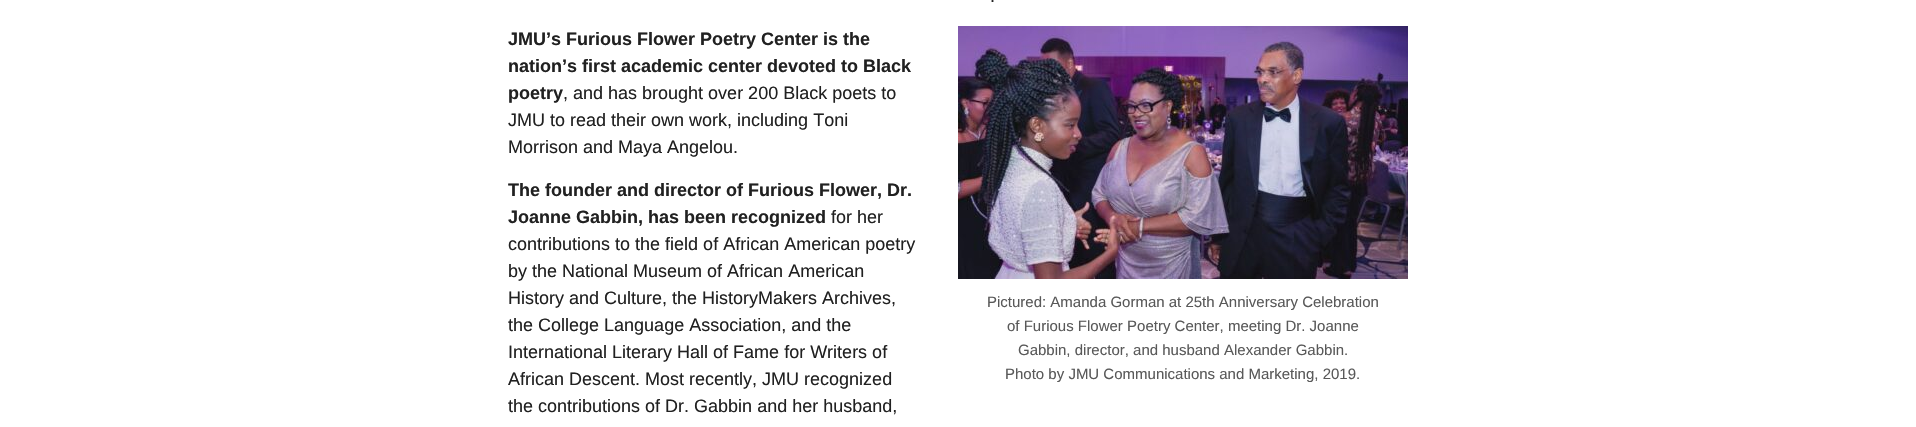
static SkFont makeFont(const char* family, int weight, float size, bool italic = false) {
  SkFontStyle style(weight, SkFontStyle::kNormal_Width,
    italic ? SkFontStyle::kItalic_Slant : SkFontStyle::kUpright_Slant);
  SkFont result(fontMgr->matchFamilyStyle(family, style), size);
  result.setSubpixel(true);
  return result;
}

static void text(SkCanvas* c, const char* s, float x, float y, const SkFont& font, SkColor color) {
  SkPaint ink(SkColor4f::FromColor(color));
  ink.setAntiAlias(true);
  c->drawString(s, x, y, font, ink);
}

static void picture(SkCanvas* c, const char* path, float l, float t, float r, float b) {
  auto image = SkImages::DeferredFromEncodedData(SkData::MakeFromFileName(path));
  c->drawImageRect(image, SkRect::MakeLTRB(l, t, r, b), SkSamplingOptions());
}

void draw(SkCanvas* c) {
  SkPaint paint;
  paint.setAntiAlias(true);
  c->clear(0xffffffff);
  SkFont face1 = makeFont("Liberation Sans", 400, 18);
  text(c, ".", 990, 2, face1, 0xff212121);
  SkFont face2 = makeFont("Liberation Sans", 700, 18);
  text(c, "JMU’s Furious Flower Poetry Center is the", 508, 45, face2, 0xff212121);
  text(c, "nation’s first academic center devoted to Black", 508, 72, face2, 0xff212121);
  text(c, "poetry", 508, 99, face2, 0xff212121);
  text(c, ", and has brought over 200 Black poets to", 563, 99, face1, 0xff212121);
  text(c, "JMU to read their own work, including Toni", 508, 126, face1, 0xff212121);
  text(c, "Morrison and Maya Angelou.", 508, 153, face1, 0xff212121);
  text(c, "The founder and director of Furious Flower, Dr.", 508, 196, face2, 0xff212121);
  text(c, "Joanne Gabbin, has been recognized", 508, 223, face2, 0xff212121);
  text(c, "for her", 831, 223, face1, 0xff212121);
  text(c, "contributions to the field of African American poetry", 508, 250, face1, 0xff212121);
  text(c, "by the National Museum of African American", 508, 277, face1, 0xff212121);
  text(c, "History and Culture, the HistoryMakers Archives,", 508, 304, face1, 0xff212121);
  text(c, "the College Language Association, and the", 508, 331, face1, 0xff212121);
  text(c, "International Literary Hall of Fame for Writers of", 508, 358, face1, 0xff212121);
  text(c, "African Descent. Most recently, JMU recognized", 508, 385, face1, 0xff212121);
  text(c, "the contributions of Dr. Gabbin and her husband,", 508, 412, face1, 0xff212121);
  picture(c, "img_01.png", 958, 26, 1408, 279);
  SkFont face3 = makeFont("Liberation Sans", 400, 15);
  text(c, "Pictured: Amanda Gorman at 25th Anniversary Celebration", 987, 307, face3, 0xff595959);
  text(c, "of Furious Flower Poetry Center, meeting Dr. Joanne", 1007, 331, face3, 0xff595959);
  text(c, "Gabbin, director, and husband Alexander Gabbin.", 1018, 355, face3, 0xff595959);
  text(c, "Photo by JMU Communications and Marketing, 2019.", 1005, 379, face3, 0xff595959);
}
